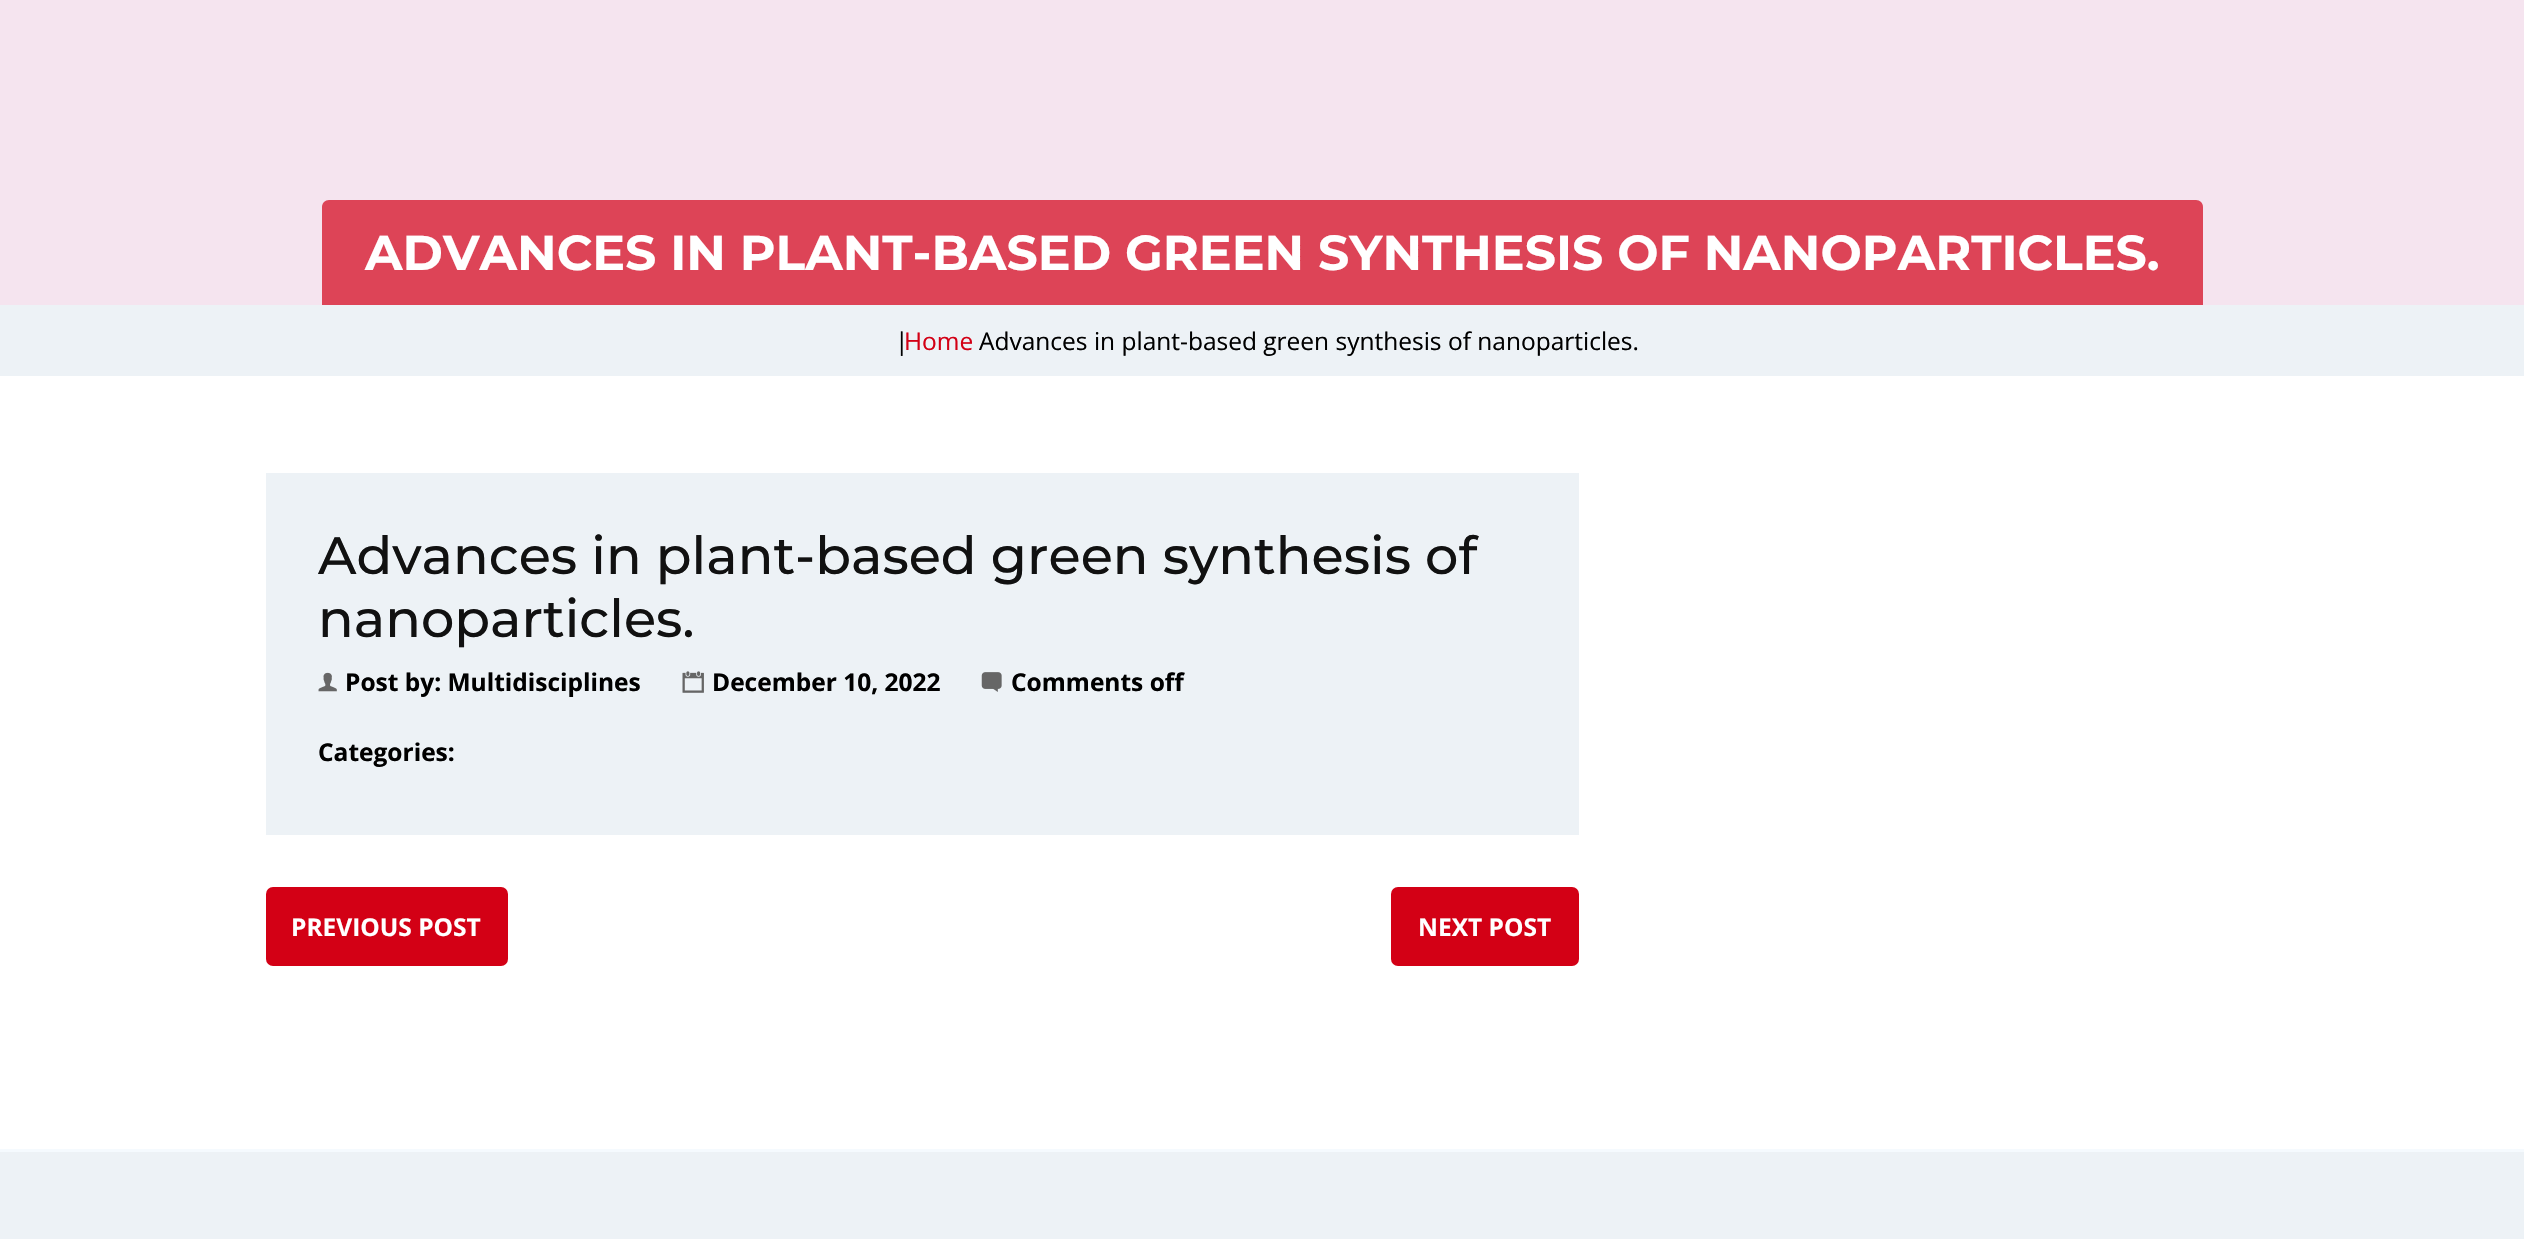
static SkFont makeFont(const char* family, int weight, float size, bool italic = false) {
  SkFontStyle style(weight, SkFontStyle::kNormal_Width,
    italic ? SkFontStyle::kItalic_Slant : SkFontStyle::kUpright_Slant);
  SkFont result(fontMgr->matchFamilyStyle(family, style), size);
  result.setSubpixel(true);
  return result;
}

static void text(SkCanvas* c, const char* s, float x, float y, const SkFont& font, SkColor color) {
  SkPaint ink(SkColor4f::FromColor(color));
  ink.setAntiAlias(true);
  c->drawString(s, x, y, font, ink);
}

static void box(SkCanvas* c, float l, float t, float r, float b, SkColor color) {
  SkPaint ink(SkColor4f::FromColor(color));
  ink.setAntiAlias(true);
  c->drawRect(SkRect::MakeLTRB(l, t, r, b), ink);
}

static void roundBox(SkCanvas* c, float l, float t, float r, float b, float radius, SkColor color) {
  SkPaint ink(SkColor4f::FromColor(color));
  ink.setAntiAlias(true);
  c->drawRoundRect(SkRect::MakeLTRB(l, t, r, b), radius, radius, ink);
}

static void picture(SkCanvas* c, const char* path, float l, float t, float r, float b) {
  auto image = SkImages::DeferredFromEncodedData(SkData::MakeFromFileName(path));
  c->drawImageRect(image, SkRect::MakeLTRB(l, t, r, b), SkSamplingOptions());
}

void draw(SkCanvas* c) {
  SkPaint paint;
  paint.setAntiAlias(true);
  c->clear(0xffffffff);
  box(c, 0, 0, 2524, 305, 0xfff5e4ef);
  paint.setColor(0xffdd4457);
  c->drawPath(SkPathBuilder().moveTo(329, 200).lineTo(2196, 200).cubicTo(2200, 200, 2203, 203, 2203, 207).lineTo(2203, 305).lineTo(322, 305).lineTo(322, 207).cubicTo(322, 203, 325, 200, 329, 200).close().detach(), paint);
  SkFont face1 = makeFont("Montserrat", 700, 49);
  text(c, "ADVANCES IN PLANT-BASED GREEN SYNTHESIS OF NANOPARTICLES.", 365, 270, face1, 0xffffffff);
  box(c, 0, 305, 2524, 376, 0xffedf2f6);
  SkFont face2 = makeFont("Open Sans", 400, 24.5f);
  text(c, "|", 895, 350, face2, 0xff000000);
  text(c, "Home", 904, 350, face2, 0xffd30015);
  text(c, "Advances in plant-based green synthesis of nanoparticles.", 979, 350, face2, 0xff000000);
  box(c, 266, 473, 1579, 835, 0xffedf2f6);
  SkFont face3 = makeFont("Montserrat", 500, 52.5f);
  text(c, "Advances in plant-based green synthesis of", 318, 574, face3, 0xff111111);
  text(c, "nanoparticles.", 318, 637, face3, 0xff111111);
  picture(c, "img_01.png", 318, 672, 337, 692);
  SkFont face4 = makeFont("Open Sans", 700, 24.5f);
  text(c, "Post by: Multidisciplines", 345, 691, face4, 0xff000000);
  picture(c, "img_02.png", 682, 671, 704, 693);
  text(c, "December 10, 2022", 712, 691, face4, 0xff000000);
  picture(c, "img_03.png", 981, 672, 1002, 692);
  text(c, "Comments off", 1011, 691, face4, 0xff000000);
  text(c, "Categories:", 318, 761, face4, 0xff000000);
  roundBox(c, 266, 887, 508, 966, 7, 0xffd30015);
  text(c, "PREVIOUS POST", 291, 936, face4, 0xffffffff);
  roundBox(c, 1391, 887, 1579, 966, 7, 0xffd30015);
  text(c, "NEXT POST", 1418, 936, face4, 0xffffffff);
  box(c, 0, 1152, 2524, 1239, 0xffedf2f6);
  box(c, 0, 1149, 2524, 1152, 0xfff5fafe);
}
